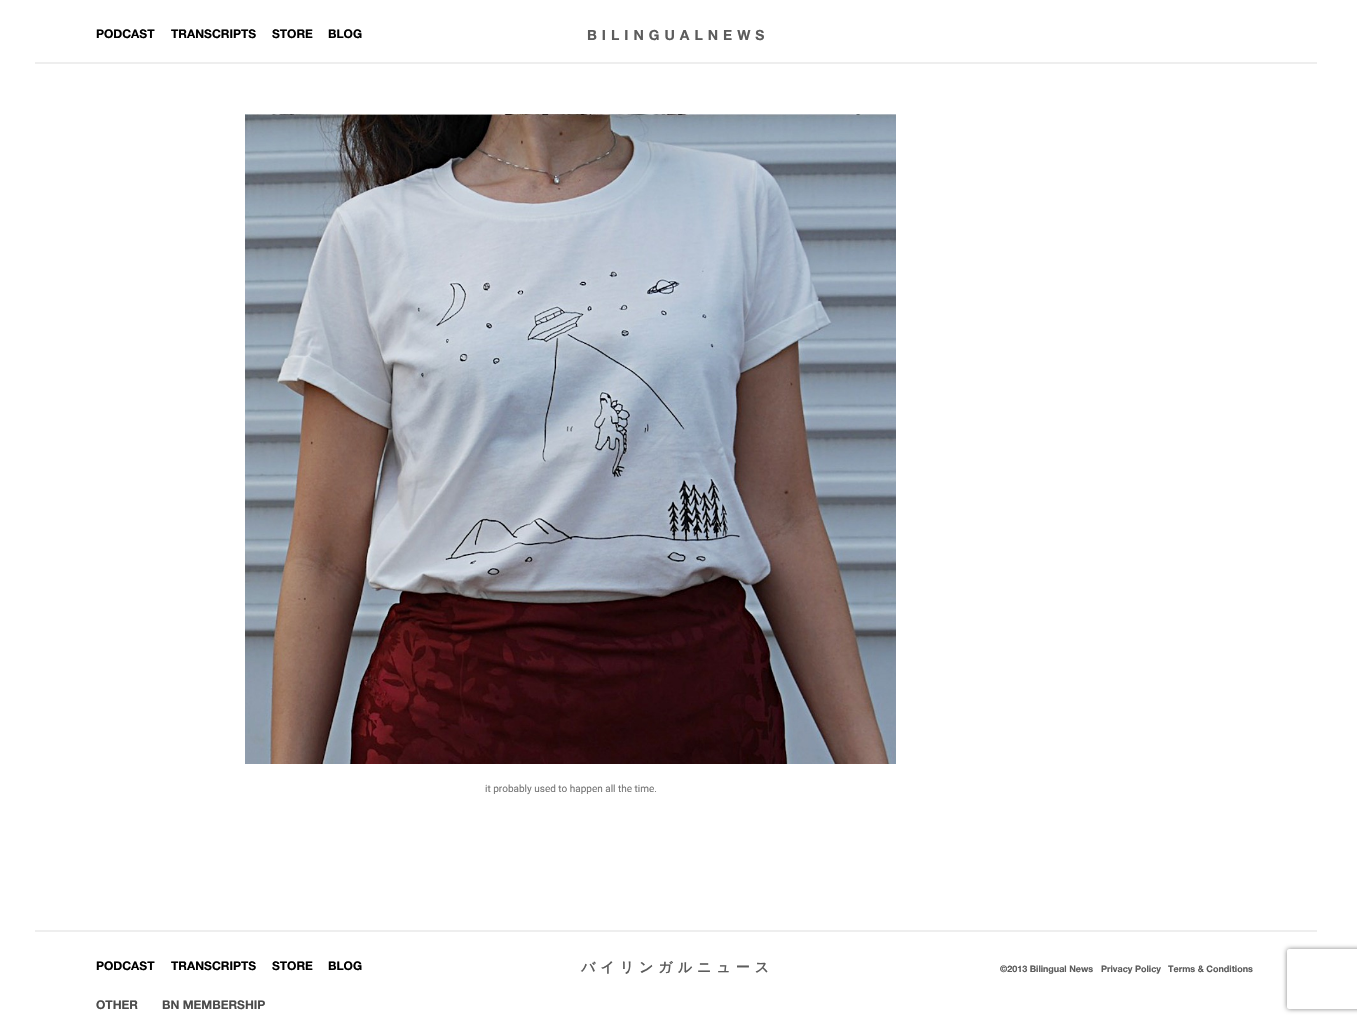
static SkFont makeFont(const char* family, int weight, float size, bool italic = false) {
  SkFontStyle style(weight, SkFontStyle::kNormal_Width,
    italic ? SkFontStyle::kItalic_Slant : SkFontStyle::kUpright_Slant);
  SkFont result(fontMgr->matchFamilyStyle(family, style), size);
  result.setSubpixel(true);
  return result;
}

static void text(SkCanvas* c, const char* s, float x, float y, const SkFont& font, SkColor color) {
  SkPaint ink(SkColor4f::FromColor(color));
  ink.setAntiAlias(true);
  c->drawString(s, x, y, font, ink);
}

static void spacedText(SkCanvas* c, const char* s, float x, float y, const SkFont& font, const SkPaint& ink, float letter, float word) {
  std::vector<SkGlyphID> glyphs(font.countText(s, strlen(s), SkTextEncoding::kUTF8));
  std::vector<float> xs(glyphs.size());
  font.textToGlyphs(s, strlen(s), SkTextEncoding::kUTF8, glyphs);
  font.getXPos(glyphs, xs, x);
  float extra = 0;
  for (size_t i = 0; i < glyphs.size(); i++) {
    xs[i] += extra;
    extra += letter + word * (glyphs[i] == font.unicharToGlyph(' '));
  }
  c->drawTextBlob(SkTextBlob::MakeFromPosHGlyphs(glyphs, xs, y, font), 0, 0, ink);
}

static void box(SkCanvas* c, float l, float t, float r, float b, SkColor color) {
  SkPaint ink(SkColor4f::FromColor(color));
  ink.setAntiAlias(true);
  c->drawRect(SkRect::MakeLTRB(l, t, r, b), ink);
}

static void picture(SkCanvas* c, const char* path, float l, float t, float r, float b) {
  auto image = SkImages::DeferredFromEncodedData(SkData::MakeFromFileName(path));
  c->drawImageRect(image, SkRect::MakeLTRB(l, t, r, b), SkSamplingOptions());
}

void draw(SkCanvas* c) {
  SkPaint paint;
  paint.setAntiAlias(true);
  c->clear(0xffffffff);
  box(c, 35, 62, 1317, 64, 0xffeeeeee);
  SkFont face1 = makeFont("Helvetica Neue", 700, 12);
  text(c, "PODCAST", 96, 38, face1, 0xff000000);
  text(c, "TRANSCRIPTS", 171, 38, face1, 0xff000000);
  text(c, "STORE", 272, 38, face1, 0xff000000);
  text(c, "BLOG", 328, 38, face1, 0xff000000);
  SkFont face2 = makeFont("Helvetica Neue", 700, 14);
  paint.setColor(0xff5c5c5c);
  spacedText(c, "BILINGUALNEWS", 587, 40, face2, paint, 5, 0);
  picture(c, "img_01.png", 245, 114, 896, 764);
  SkFont face3 = makeFont("Roboto", 400, 10);
  text(c, "it probably used to happen all the time.", 485, 792, face3, 0xff767676);
  box(c, 35, 930, 1317, 932, 0xffeeeeee);
  text(c, "PODCAST", 96, 970, face1, 0xff000000);
  text(c, "TRANSCRIPTS", 171, 970, face1, 0xff000000);
  text(c, "STORE", 272, 970, face1, 0xff000000);
  text(c, "BLOG", 328, 970, face1, 0xff000000);
  text(c, "OTHER", 96, 1009, face1, 0xff4b4b4b);
  text(c, "BN MEMBERSHIP", 162, 1009, face1, 0xff4b4b4b);
  SkFont face4 = makeFont("WenQuanYi Zen Hei", 700, 14);
  spacedText(c, "バイリンガルニュース", 581, 972, face4, paint, 5, 0);
  SkFont face5 = makeFont("Helvetica Neue", 700, 9);
  text(c, "©2013 Bilingual News", 1000, 972, face5, 0xff5c5c5c);
  text(c, "Privacy Policy", 1101, 972, face5, 0xff5c5c5c);
  text(c, "Terms & Conditions", 1168, 972, face5, 0xff5c5c5c);
  c->save();
  c->clipPath(SkPathBuilder(SkPathFillType::kEvenOdd).moveTo(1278, 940).lineTo(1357, 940).lineTo(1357, 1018).lineTo(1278, 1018).close().moveTo(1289, 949).lineTo(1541, 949).cubicTo(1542, 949, 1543, 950, 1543, 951).lineTo(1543, 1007).cubicTo(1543, 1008, 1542, 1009, 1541, 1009).lineTo(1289, 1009).cubicTo(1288, 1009, 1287, 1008, 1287, 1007).lineTo(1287, 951).cubicTo(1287, 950, 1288, 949, 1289, 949).close().detach(), true);
  paint.setColor(0xff808080);
  paint.setMaskFilter(SkMaskFilter::MakeBlur(kNormal_SkBlurStyle, 2.5f));
  c->drawRoundRect(SkRect::MakeLTRB(1287, 949, 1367, 1009), 2, 2, paint);
  paint.setMaskFilter(nullptr);
  c->restore();
}
